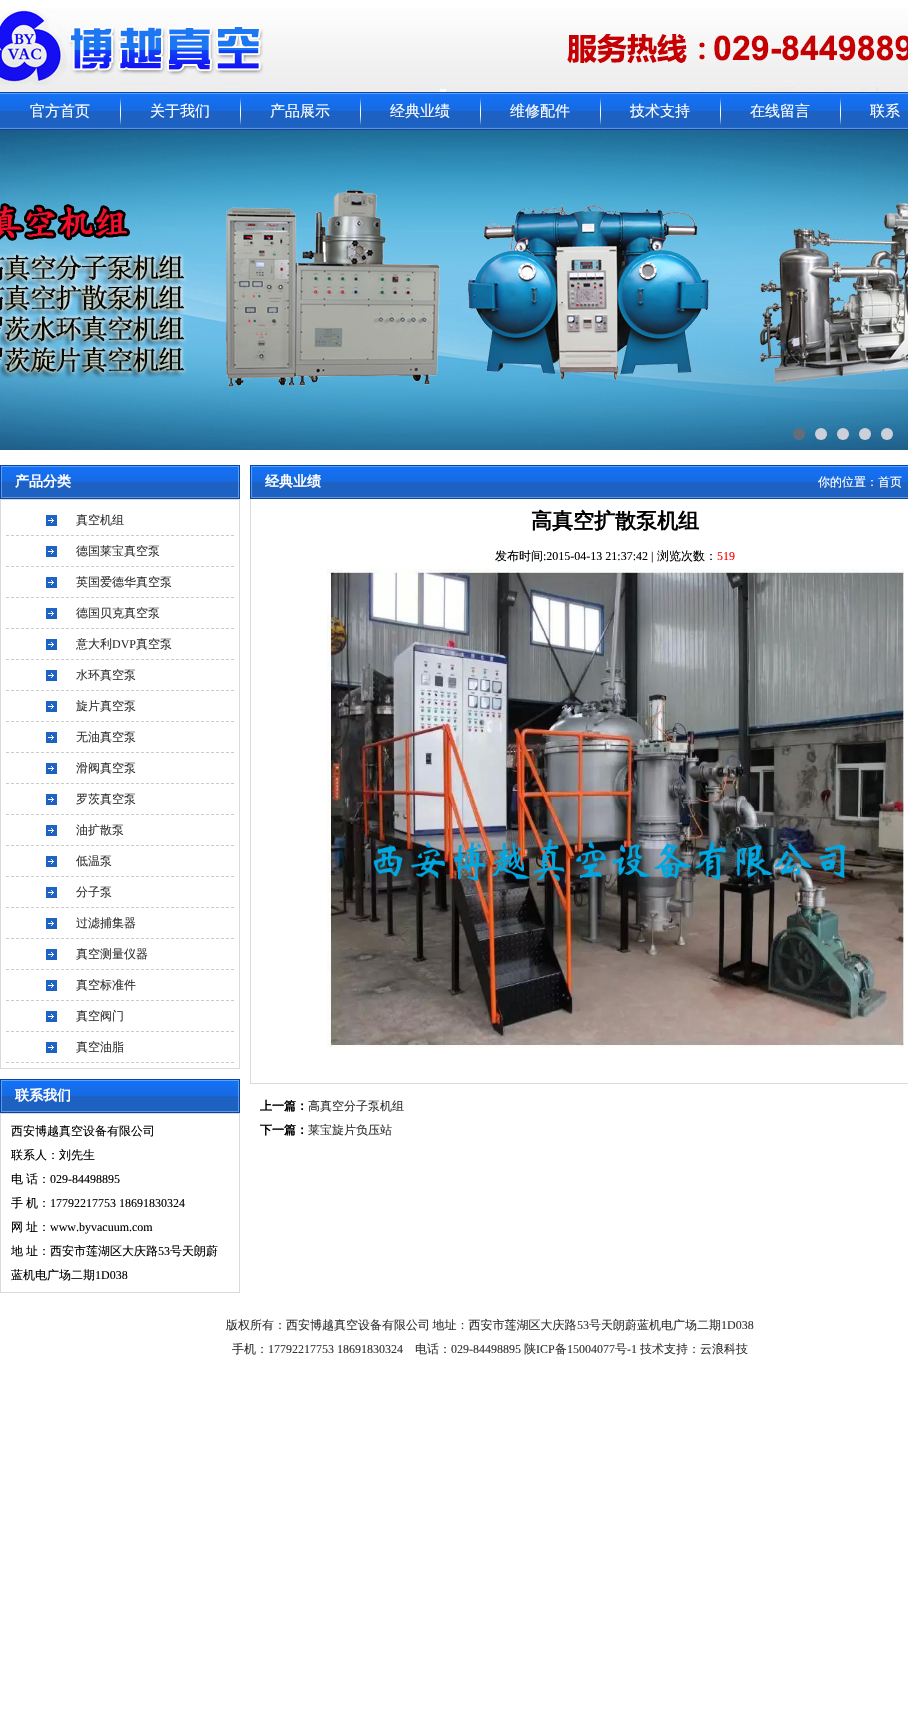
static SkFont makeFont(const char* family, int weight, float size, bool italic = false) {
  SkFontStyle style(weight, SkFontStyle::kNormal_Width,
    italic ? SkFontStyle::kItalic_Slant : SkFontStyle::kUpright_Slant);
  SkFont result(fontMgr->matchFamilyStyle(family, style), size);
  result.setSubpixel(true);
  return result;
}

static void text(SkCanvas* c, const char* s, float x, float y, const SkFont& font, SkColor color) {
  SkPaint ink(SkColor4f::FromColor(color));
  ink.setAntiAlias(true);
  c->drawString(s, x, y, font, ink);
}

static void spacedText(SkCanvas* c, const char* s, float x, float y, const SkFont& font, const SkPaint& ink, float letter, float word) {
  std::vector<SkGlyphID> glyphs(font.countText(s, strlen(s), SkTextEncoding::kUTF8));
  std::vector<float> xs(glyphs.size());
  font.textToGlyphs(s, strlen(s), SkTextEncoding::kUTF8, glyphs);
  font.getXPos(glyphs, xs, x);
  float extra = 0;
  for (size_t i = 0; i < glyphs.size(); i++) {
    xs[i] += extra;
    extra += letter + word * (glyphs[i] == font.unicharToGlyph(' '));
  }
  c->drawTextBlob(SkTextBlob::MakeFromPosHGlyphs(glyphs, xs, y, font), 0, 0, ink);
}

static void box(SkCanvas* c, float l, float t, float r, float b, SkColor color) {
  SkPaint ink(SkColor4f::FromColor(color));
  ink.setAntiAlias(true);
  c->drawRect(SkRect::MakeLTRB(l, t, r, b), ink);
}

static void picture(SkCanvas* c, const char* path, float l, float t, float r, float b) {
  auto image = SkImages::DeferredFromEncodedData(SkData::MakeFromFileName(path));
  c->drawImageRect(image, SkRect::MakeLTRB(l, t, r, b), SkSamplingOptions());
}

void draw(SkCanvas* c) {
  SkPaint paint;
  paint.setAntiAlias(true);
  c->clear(0xffffffff);
  picture(c, "img_01.png", 0, 112, 908, 130);
  picture(c, "img_02.png", 0, 8, 908, 112);
  SkFont face1 = makeFont("WenQuanYi Zen Hei", 500, 15);
  text(c, "官方首页", 30, 116, face1, 0xffffffff);
  picture(c, "img_03.png", 120, 93, 121, 130);
  text(c, "关于我们", 150, 116, face1, 0xffffffff);
  picture(c, "img_04.png", 240, 92, 241, 130);
  text(c, "产品展示", 270, 116, face1, 0xffffffff);
  picture(c, "img_03.png", 360, 93, 361, 130);
  text(c, "经典业绩", 390, 116, face1, 0xffffffff);
  picture(c, "img_03.png", 480, 93, 481, 130);
  text(c, "维修配件", 510, 116, face1, 0xffffffff);
  picture(c, "img_03.png", 600, 93, 601, 130);
  text(c, "技术支持", 630, 116, face1, 0xffffffff);
  picture(c, "img_03.png", 720, 93, 721, 130);
  text(c, "在线留言", 750, 116, face1, 0xffffffff);
  picture(c, "img_03.png", 840, 93, 841, 130);
  text(c, "联系", 870, 116, face1, 0xffffffff);
  picture(c, "img_05.png", 0, 130, 908, 450);
  paint.setColor(0xff656d78);
  c->drawCircle(799, 434, 6, paint);
  paint.setColor(0xffccd1d9);
  c->drawCircle(821, 434, 6, paint);
  c->drawCircle(843, 434, 6, paint);
  c->drawCircle(865, 434, 6, paint);
  c->drawCircle(887, 434, 6, paint);
  picture(c, "img_06.png", 0, 465, 240, 499);
  SkFont face2 = makeFont("WenQuanYi Zen Hei", 700, 14);
  text(c, "产品分类", 15, 486, face2, 0xffffffff);
  paint.setStyle(SkPaint::kStroke_Style);
  paint.setStrokeWidth(1);
  paint.setColor(0xffdadada);
  c->drawRect(SkRect::MakeLTRB(0.5f, 499.5f, 239.5f, 1068.5f), paint);
  picture(c, "img_07.png", 46, 515, 57, 526);
  paint.setColor(0xffcccccc);
  paint.setPathEffect(SkDashPathEffect::Make({{3, 2}}, 0));
  c->drawPath(SkPathBuilder().moveTo(6, 535.5f).lineTo(234, 535.5f).detach(), paint);
  paint.setPathEffect(nullptr);
  SkFont face3 = makeFont("WenQuanYi Zen Hei", 500, 12);
  text(c, "真空机组", 76, 524, face3, 0xff333333);
  picture(c, "img_07.png", 46, 546, 57, 557);
  paint.setPathEffect(SkDashPathEffect::Make({{3, 2}}, 0));
  c->drawPath(SkPathBuilder().moveTo(6, 566.5f).lineTo(234, 566.5f).detach(), paint);
  paint.setPathEffect(nullptr);
  text(c, "德国莱宝真空泵", 76, 555, face3, 0xff333333);
  picture(c, "img_07.png", 46, 577, 57, 588);
  paint.setPathEffect(SkDashPathEffect::Make({{3, 2}}, 0));
  c->drawPath(SkPathBuilder().moveTo(6, 597.5f).lineTo(234, 597.5f).detach(), paint);
  paint.setPathEffect(nullptr);
  text(c, "英国爱德华真空泵", 76, 586, face3, 0xff333333);
  picture(c, "img_07.png", 46, 608, 57, 619);
  paint.setPathEffect(SkDashPathEffect::Make({{3, 2}}, 0));
  c->drawPath(SkPathBuilder().moveTo(6, 628.5f).lineTo(234, 628.5f).detach(), paint);
  paint.setPathEffect(nullptr);
  text(c, "德国贝克真空泵", 76, 617, face3, 0xff333333);
  picture(c, "img_07.png", 46, 639, 57, 650);
  paint.setPathEffect(SkDashPathEffect::Make({{3, 2}}, 0));
  c->drawPath(SkPathBuilder().moveTo(6, 659.5f).lineTo(234, 659.5f).detach(), paint);
  paint.setPathEffect(nullptr);
  text(c, "意大利", 76, 648, face3, 0xff333333);
  SkFont face4 = makeFont("Liberation Serif", 400, 12);
  text(c, "DVP", 112, 648, face4, 0xff333333);
  text(c, "真空泵", 136, 648, face3, 0xff333333);
  picture(c, "img_07.png", 46, 670, 57, 681);
  paint.setPathEffect(SkDashPathEffect::Make({{3, 2}}, 0));
  c->drawPath(SkPathBuilder().moveTo(6, 690.5f).lineTo(234, 690.5f).detach(), paint);
  paint.setPathEffect(nullptr);
  text(c, "水环真空泵", 76, 679, face3, 0xff333333);
  picture(c, "img_07.png", 46, 701, 57, 712);
  paint.setPathEffect(SkDashPathEffect::Make({{3, 2}}, 0));
  c->drawPath(SkPathBuilder().moveTo(6, 721.5f).lineTo(234, 721.5f).detach(), paint);
  paint.setPathEffect(nullptr);
  text(c, "旋片真空泵", 76, 710, face3, 0xff333333);
  picture(c, "img_07.png", 46, 732, 57, 743);
  paint.setPathEffect(SkDashPathEffect::Make({{3, 2}}, 0));
  c->drawPath(SkPathBuilder().moveTo(6, 752.5f).lineTo(234, 752.5f).detach(), paint);
  paint.setPathEffect(nullptr);
  text(c, "无油真空泵", 76, 741, face3, 0xff333333);
  picture(c, "img_07.png", 46, 763, 57, 774);
  paint.setPathEffect(SkDashPathEffect::Make({{3, 2}}, 0));
  c->drawPath(SkPathBuilder().moveTo(6, 783.5f).lineTo(234, 783.5f).detach(), paint);
  paint.setPathEffect(nullptr);
  text(c, "滑阀真空泵", 76, 772, face3, 0xff333333);
  picture(c, "img_07.png", 46, 794, 57, 805);
  paint.setPathEffect(SkDashPathEffect::Make({{3, 2}}, 0));
  c->drawPath(SkPathBuilder().moveTo(6, 814.5f).lineTo(234, 814.5f).detach(), paint);
  paint.setPathEffect(nullptr);
  text(c, "罗茨真空泵", 76, 803, face3, 0xff333333);
  picture(c, "img_07.png", 46, 825, 57, 836);
  paint.setPathEffect(SkDashPathEffect::Make({{3, 2}}, 0));
  c->drawPath(SkPathBuilder().moveTo(6, 845.5f).lineTo(234, 845.5f).detach(), paint);
  paint.setPathEffect(nullptr);
  text(c, "油扩散泵", 76, 834, face3, 0xff333333);
  picture(c, "img_07.png", 46, 856, 57, 867);
  paint.setPathEffect(SkDashPathEffect::Make({{3, 2}}, 0));
  c->drawPath(SkPathBuilder().moveTo(6, 876.5f).lineTo(234, 876.5f).detach(), paint);
  paint.setPathEffect(nullptr);
  text(c, "低温泵", 76, 865, face3, 0xff333333);
  picture(c, "img_07.png", 46, 887, 57, 898);
  paint.setPathEffect(SkDashPathEffect::Make({{3, 2}}, 0));
  c->drawPath(SkPathBuilder().moveTo(6, 907.5f).lineTo(234, 907.5f).detach(), paint);
  paint.setPathEffect(nullptr);
  text(c, "分子泵", 76, 896, face3, 0xff333333);
  picture(c, "img_07.png", 46, 918, 57, 929);
  paint.setPathEffect(SkDashPathEffect::Make({{3, 2}}, 0));
  c->drawPath(SkPathBuilder().moveTo(6, 938.5f).lineTo(234, 938.5f).detach(), paint);
  paint.setPathEffect(nullptr);
  text(c, "过滤捕集器", 76, 927, face3, 0xff333333);
  picture(c, "img_07.png", 46, 949, 57, 960);
  paint.setPathEffect(SkDashPathEffect::Make({{3, 2}}, 0));
  c->drawPath(SkPathBuilder().moveTo(6, 969.5f).lineTo(234, 969.5f).detach(), paint);
  paint.setPathEffect(nullptr);
  text(c, "真空测量仪器", 76, 958, face3, 0xff333333);
  picture(c, "img_07.png", 46, 980, 57, 991);
  paint.setPathEffect(SkDashPathEffect::Make({{3, 2}}, 0));
  c->drawPath(SkPathBuilder().moveTo(6, 1000.5f).lineTo(234, 1000.5f).detach(), paint);
  paint.setPathEffect(nullptr);
  text(c, "真空标准件", 76, 989, face3, 0xff333333);
  picture(c, "img_07.png", 46, 1011, 57, 1022);
  paint.setPathEffect(SkDashPathEffect::Make({{3, 2}}, 0));
  c->drawPath(SkPathBuilder().moveTo(6, 1031.5f).lineTo(234, 1031.5f).detach(), paint);
  paint.setPathEffect(nullptr);
  text(c, "真空阀门", 76, 1020, face3, 0xff333333);
  picture(c, "img_07.png", 46, 1042, 57, 1053);
  paint.setPathEffect(SkDashPathEffect::Make({{3, 2}}, 0));
  c->drawPath(SkPathBuilder().moveTo(6, 1062.5f).lineTo(234, 1062.5f).detach(), paint);
  paint.setPathEffect(nullptr);
  text(c, "真空油脂", 76, 1051, face3, 0xff333333);
  picture(c, "img_06.png", 0, 1079, 240, 1113);
  text(c, "联系我们", 15, 1100, face2, 0xffffffff);
  paint.setColor(0xffdadada);
  c->drawRect(SkRect::MakeLTRB(0.5f, 1113.5f, 239.5f, 1292.5f), paint);
  text(c, "西安博越真空设备有限公司", 11, 1135, face3, 0xff000000);
  text(c, "联系人：刘先生", 11, 1159, face3, 0xff000000);
  text(c, "电", 11, 1183, face3, 0xff000000);
  text(c, "话：", 26, 1183, face3, 0xff000000);
  text(c, "029-84498895", 50, 1183, face4, 0xff000000);
  text(c, "手", 11, 1207, face3, 0xff000000);
  text(c, "机：", 26, 1207, face3, 0xff000000);
  text(c, "17792217753 18691830324", 50, 1207, face4, 0xff000000);
  text(c, "网", 11, 1231, face3, 0xff000000);
  text(c, "址：", 26, 1231, face3, 0xff000000);
  text(c, "www.byvacuum.com", 50, 1231, face4, 0xff000000);
  text(c, "地", 11, 1255, face3, 0xff000000);
  text(c, "址：西安市莲湖区大庆路", 26, 1255, face3, 0xff000000);
  text(c, "53", 158, 1255, face4, 0xff000000);
  text(c, "号天朗蔚", 170, 1255, face3, 0xff000000);
  text(c, "蓝机电广场二期", 11, 1279, face3, 0xff000000);
  text(c, "1D038", 95, 1279, face4, 0xff000000);
  picture(c, "img_08.png", 250, 465, 908, 499);
  text(c, "经典业绩", 265, 486, face2, 0xffffffff);
  text(c, "你的位置：首页", 818, 486, face3, 0xffffffff);
  box(c, 250, 1083, 908, 1084, 0xffdadada);
  box(c, 250, 499, 251, 1084, 0xffdadada);
  SkFont face5 = makeFont("WenQuanYi Zen Hei", 700, 21);
  text(c, "高真空扩散泵机组", 531, 528, face5, 0xff000000);
  text(c, "发布时间", 495, 560, face3, 0xff000000);
  text(c, ":2015-04-13 21:37:42 |", 543, 560, face4, 0xff000000);
  text(c, "浏览次数：", 657, 560, face3, 0xff000000);
  text(c, "519", 717, 560, face4, 0xffff0000);
  picture(c, "img_09.png", 327, 569, 904, 1048);
  SkFont face6 = makeFont("WenQuanYi Zen Hei", 700, 12);
  text(c, "上一篇：", 260, 1110, face6, 0xff000000);
  text(c, "高真空分子泵机组", 308, 1110, face3, 0xff333333);
  text(c, "下一篇：", 260, 1134, face6, 0xff000000);
  text(c, "莱宝旋片负压站", 308, 1134, face3, 0xff333333);
  paint.setStyle(SkPaint::kFill_Style);
  paint.setColor(0xff333333);
  spacedText(c, "版权所有：西安博越真空设备有限公司 地址：西安市莲湖区大庆路", 226, 1329, face3, paint, 0, -1);
  text(c, "53", 577, 1329, face4, 0xff333333);
  text(c, "号天朗蔚蓝机电广场二期", 589, 1329, face3, 0xff333333);
  text(c, "1D038", 721, 1329, face4, 0xff333333);
  text(c, "手机：", 232, 1353, face3, 0xff333333);
  text(c, "17792217753 18691830324", 268, 1353, face4, 0xff333333);
  text(c, "电话：", 415, 1353, face3, 0xff333333);
  text(c, "029-84498895", 451, 1353, face4, 0xff333333);
  text(c, "陕", 524, 1353, face3, 0xff333333);
  text(c, "ICP", 536, 1353, face4, 0xff333333);
  text(c, "备", 555, 1353, face3, 0xff333333);
  text(c, "15004077", 567, 1353, face4, 0xff333333);
  text(c, "号", 615, 1353, face3, 0xff333333);
  text(c, "-1", 627, 1353, face4, 0xff333333);
  text(c, "技术支持：云浪科技", 640, 1353, face3, 0xff333333);
}
